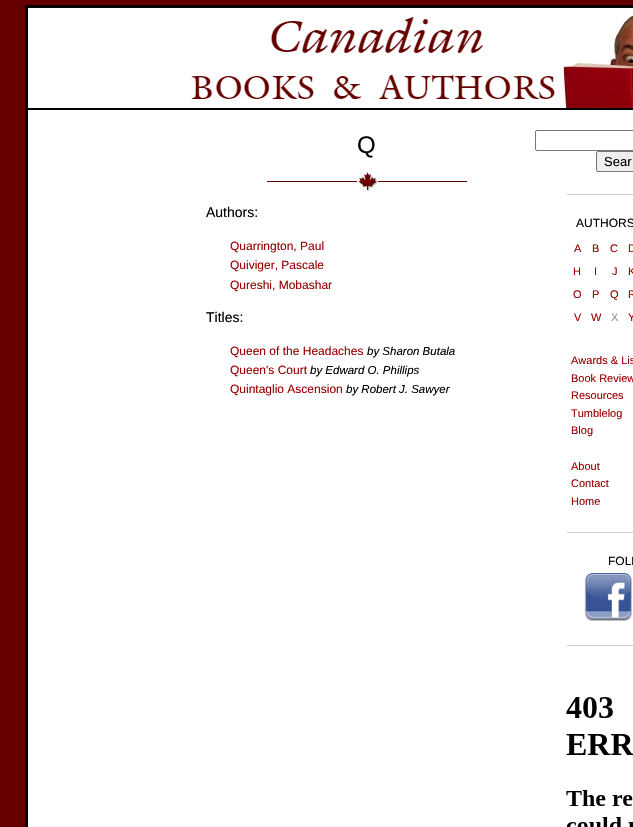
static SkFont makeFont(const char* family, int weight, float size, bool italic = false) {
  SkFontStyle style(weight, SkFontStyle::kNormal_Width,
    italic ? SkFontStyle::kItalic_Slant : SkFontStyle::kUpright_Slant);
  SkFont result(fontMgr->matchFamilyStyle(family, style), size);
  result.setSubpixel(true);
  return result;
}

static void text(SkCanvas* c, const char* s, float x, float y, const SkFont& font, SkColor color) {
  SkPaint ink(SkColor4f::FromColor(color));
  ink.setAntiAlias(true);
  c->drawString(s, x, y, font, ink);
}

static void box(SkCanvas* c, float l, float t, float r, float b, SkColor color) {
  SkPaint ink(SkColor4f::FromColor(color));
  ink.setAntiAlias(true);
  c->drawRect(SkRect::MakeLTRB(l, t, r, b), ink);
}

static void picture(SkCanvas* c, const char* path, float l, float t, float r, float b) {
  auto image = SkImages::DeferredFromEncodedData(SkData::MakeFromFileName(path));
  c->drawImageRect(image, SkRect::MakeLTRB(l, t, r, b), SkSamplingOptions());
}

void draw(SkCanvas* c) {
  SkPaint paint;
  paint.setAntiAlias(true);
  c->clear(0xff660000);
  paint.setColor(0xffffffff);
  c->drawRect(SkRect::MakeLTRB(26.5f, 6.5f, 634.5f, 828.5f), paint);
  paint.setStyle(SkPaint::kStroke_Style);
  paint.setStrokeWidth(3);
  paint.setColor(0xff000000);
  c->drawRect(SkRect::MakeLTRB(26.5f, 6.5f, 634.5f, 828.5f), paint);
  picture(c, "img_01.png", 563, 15, 633, 108);
  box(c, 28, 108, 633, 110, 0xff000000);
  picture(c, "img_02.png", 191, 17, 555, 99);
  SkFont face1 = makeFont("Liberation Sans", 400, 24);
  text(c, "Q", 357, 153, face1, 0xff000000);
  picture(c, "img_03.png", 267, 172, 467, 191);
  SkFont face2 = makeFont("Liberation Sans", 400, 14);
  text(c, "Authors:", 206, 217, face2, 0xff000000);
  SkFont face3 = makeFont("Liberation Sans", 400, 12);
  text(c, "Quarrington, Paul", 230, 250, face3, 0xff990000);
  text(c, "Quiviger, Pascale", 230, 269, face3, 0xff990000);
  text(c, "Qureshi, Mobashar", 230, 289, face3, 0xff990000);
  text(c, "Titles:", 206, 322, face2, 0xff000000);
  text(c, "Queen of the Headaches", 230, 355, face3, 0xff990000);
  SkFont face4 = makeFont("Liberation Sans", 400, 11.5f, true);
  text(c, "by Sharon Butala", 367, 355, face4, 0xff000000);
  text(c, "Queen's Court", 230, 374, face3, 0xff990000);
  text(c, "by Edward O. Phillips", 310, 374, face4, 0xff000000);
  text(c, "Quintaglio Ascension", 230, 393, face3, 0xff990000);
  text(c, "by Robert J. Sawyer", 346, 393, face4, 0xff000000);
  paint.setStrokeWidth(1);
  paint.setColor(0xff767676);
  c->drawRoundRect(SkRect::MakeLTRB(535.5f, 130.5f, 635.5f, 150.5f), 1.5f, 1.5f, paint);
  paint.setStyle(SkPaint::kFill_Style);
  paint.setColor(0xffefefef);
  c->drawRoundRect(SkRect::MakeLTRB(596.5f, 151.5f, 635.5f, 171.5f), 1.5f, 1.5f, paint);
  paint.setStyle(SkPaint::kStroke_Style);
  paint.setColor(0xff767676);
  c->drawRoundRect(SkRect::MakeLTRB(596.5f, 151.5f, 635.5f, 171.5f), 1.5f, 1.5f, paint);
  SkFont face5 = makeFont("Liberation Sans", 400, 13);
  text(c, "Sear", 604, 166, face5, 0xff000000);
  box(c, 567, 194, 633, 195, 0xffcccccc);
  text(c, "AUTHORS", 576, 227, face3, 0xff000000);
  SkFont face6 = makeFont("Liberation Sans", 400, 11);
  text(c, "A", 574, 252, face6, 0xff990000);
  text(c, "B", 592, 252, face6, 0xff990000);
  text(c, "C", 610, 252, face6, 0xff990000);
  text(c, "D", 628, 252, face6, 0xff990000);
  text(c, "H", 573, 275, face6, 0xff990000);
  text(c, "I", 594, 275, face6, 0xff990000);
  text(c, "J", 612, 275, face6, 0xff990000);
  text(c, "K", 628, 275, face6, 0xff990000);
  text(c, "O", 573, 298, face6, 0xff990000);
  text(c, "P", 592, 298, face6, 0xff990000);
  text(c, "Q", 610, 298, face6, 0xff990000);
  text(c, "R", 628, 298, face6, 0xff990000);
  text(c, "V", 574, 321, face6, 0xff990000);
  text(c, "W", 591, 321, face6, 0xff990000);
  text(c, "X", 611, 321, face6, 0xff909090);
  text(c, "Y", 628, 321, face6, 0xff990000);
  text(c, "Awards & Lis", 571, 364, face6, 0xff990000);
  text(c, "Book Review", 571, 382, face6, 0xff990000);
  text(c, "Resources", 571, 399, face6, 0xff990000);
  text(c, "Tumblelog", 571, 417, face6, 0xff990000);
  text(c, "Blog", 571, 434, face6, 0xff990000);
  text(c, "About", 571, 470, face6, 0xff990000);
  text(c, "Contact", 571, 487, face6, 0xff990000);
  text(c, "Home", 571, 505, face6, 0xff990000);
  box(c, 567, 532, 633, 533, 0xffcccccc);
  text(c, "FOLL", 608, 565, face3, 0xff000000);
  picture(c, "img_04.png", 584, 573, 632, 621);
  box(c, 567, 645, 633, 646, 0xffcccccc);
  picture(c, "img_05.png", 566, 697, 633, 827);
}
